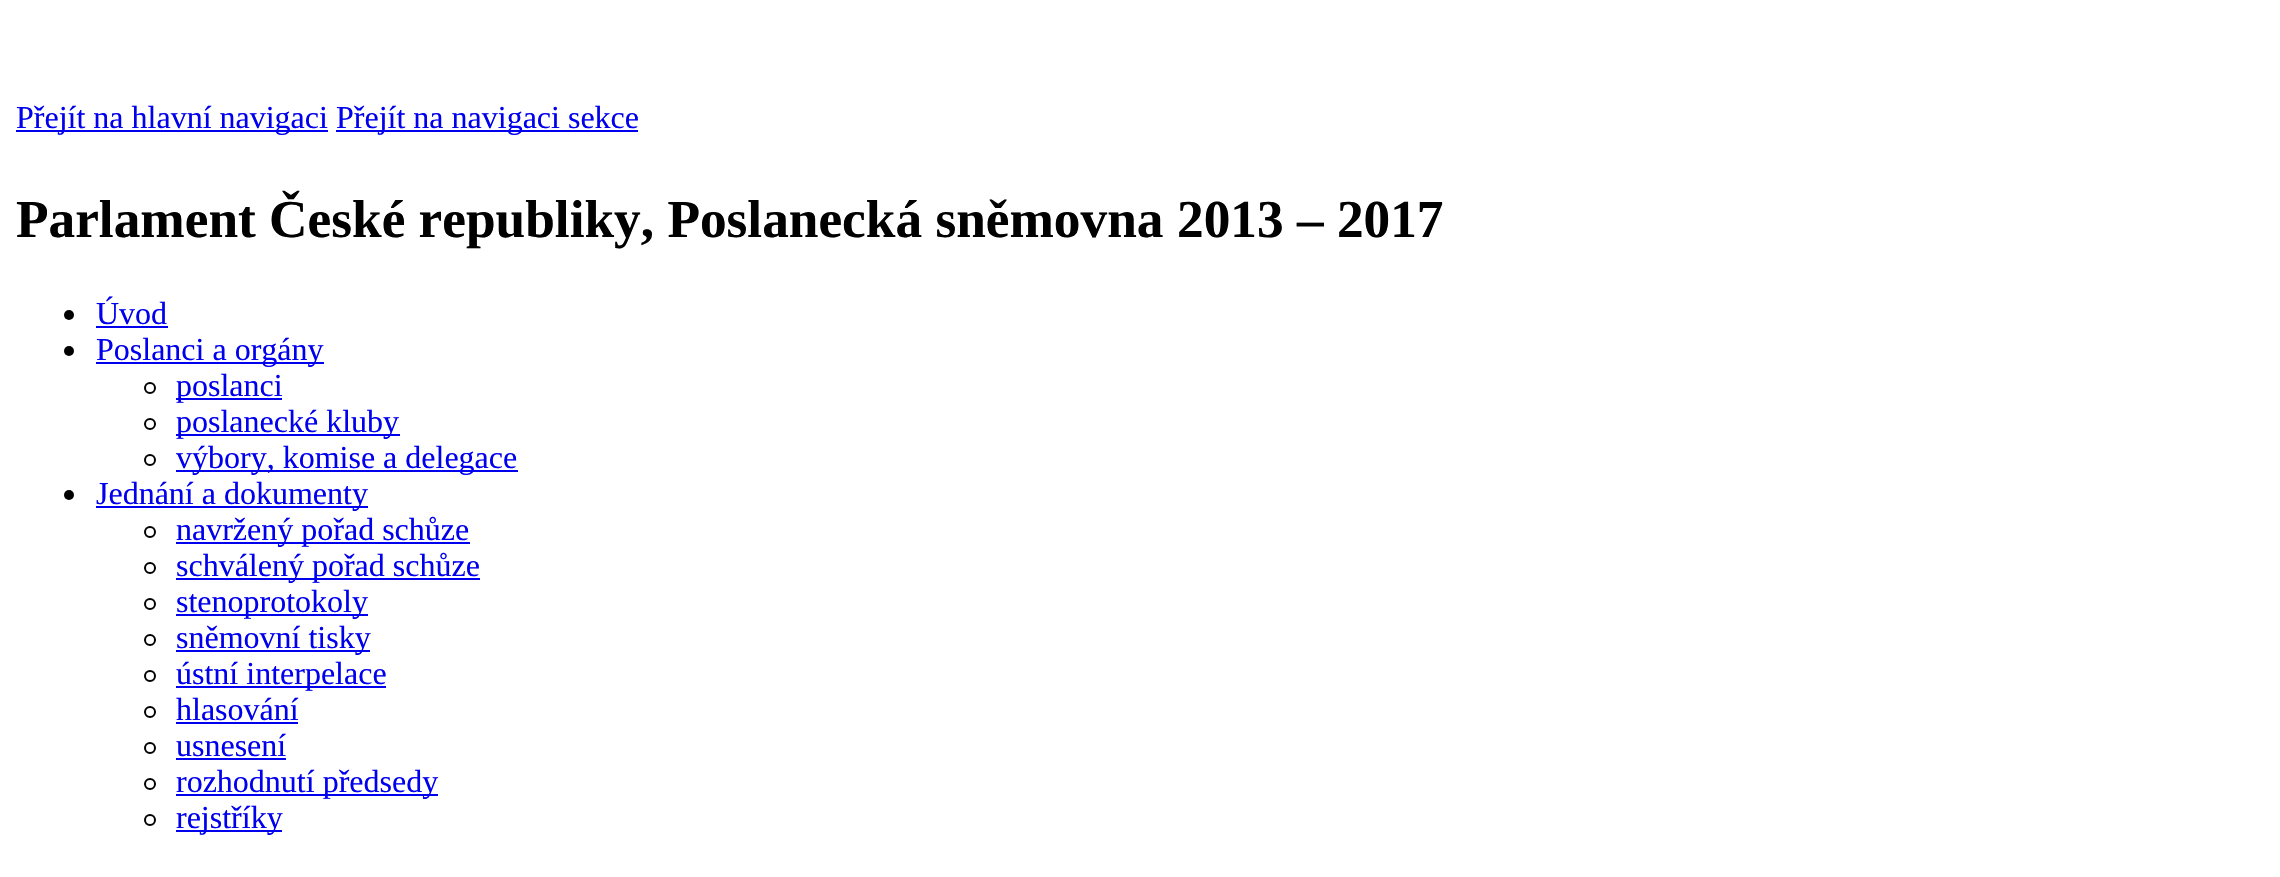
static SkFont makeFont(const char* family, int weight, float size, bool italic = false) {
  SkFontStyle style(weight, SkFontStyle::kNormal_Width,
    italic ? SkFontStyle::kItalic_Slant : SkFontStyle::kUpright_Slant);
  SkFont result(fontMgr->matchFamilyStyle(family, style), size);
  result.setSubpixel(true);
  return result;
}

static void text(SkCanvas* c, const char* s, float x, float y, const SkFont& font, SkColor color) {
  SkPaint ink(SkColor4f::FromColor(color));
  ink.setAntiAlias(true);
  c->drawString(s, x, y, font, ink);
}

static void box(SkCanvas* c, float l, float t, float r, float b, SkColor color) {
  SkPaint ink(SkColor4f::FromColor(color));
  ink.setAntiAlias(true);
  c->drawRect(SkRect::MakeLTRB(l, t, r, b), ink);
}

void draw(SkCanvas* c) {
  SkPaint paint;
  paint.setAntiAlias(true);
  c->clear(0xffffffff);
  box(c, 16, 130, 328, 132, 0xff0000ee);
  SkFont face1 = makeFont("Liberation Serif", 400, 32);
  text(c, "Přejít na hlavní navigaci", 16, 128, face1, 0xff0000ee);
  box(c, 336, 130, 638, 132, 0xff0000ee);
  text(c, "Přejít na navigaci sekce", 336, 128, face1, 0xff0000ee);
  SkFont face2 = makeFont("Liberation Serif", 700, 53.3f);
  text(c, "Parlament České republiky, Poslanecká sněmovna", 16, 237, face2, 0xff000000);
  text(c, "2013 – 2017", 1177, 237, face2, 0xff000000);
  paint.setColor(0xff000000);
  c->drawCircle(69, 315, 5, paint);
  text(c, "Úvod", 96, 324, face1, 0xff0000ee);
  box(c, 96, 326, 168, 328, 0xff0000ee);
  c->drawCircle(69, 351, 5, paint);
  box(c, 96, 362, 324, 364, 0xff0000ee);
  text(c, "Poslanci a orgány", 96, 360, face1, 0xff0000ee);
  paint.setStyle(SkPaint::kStroke_Style);
  paint.setStrokeWidth(2);
  c->drawCircle(150, 388, 5, paint);
  box(c, 176, 398, 282, 400, 0xff0000ee);
  text(c, "poslanci", 176, 396, face1, 0xff0000ee);
  c->drawCircle(150, 424, 5, paint);
  box(c, 176, 434, 400, 436, 0xff0000ee);
  text(c, "poslanecké kluby", 176, 432, face1, 0xff0000ee);
  c->drawCircle(150, 460, 5, paint);
  box(c, 176, 470, 518, 472, 0xff0000ee);
  text(c, "výbory, komise a delegace", 176, 468, face1, 0xff0000ee);
  paint.setStyle(SkPaint::kFill_Style);
  c->drawCircle(69, 495, 5, paint);
  box(c, 96, 506, 368, 508, 0xff0000ee);
  text(c, "Jednání a dokumenty", 96, 504, face1, 0xff0000ee);
  paint.setStyle(SkPaint::kStroke_Style);
  c->drawCircle(150, 532, 5, paint);
  box(c, 176, 542, 470, 544, 0xff0000ee);
  text(c, "navržený pořad schůze", 176, 540, face1, 0xff0000ee);
  c->drawCircle(150, 568, 5, paint);
  box(c, 176, 578, 480, 580, 0xff0000ee);
  text(c, "schválený pořad schůze", 176, 576, face1, 0xff0000ee);
  c->drawCircle(150, 604, 5, paint);
  box(c, 176, 614, 368, 616, 0xff0000ee);
  text(c, "stenoprotokoly", 176, 612, face1, 0xff0000ee);
  c->drawCircle(150, 640, 5, paint);
  box(c, 176, 650, 370, 652, 0xff0000ee);
  text(c, "sněmovní tisky", 176, 648, face1, 0xff0000ee);
  c->drawCircle(150, 676, 5, paint);
  box(c, 176, 686, 386, 688, 0xff0000ee);
  text(c, "ústní interpelace", 176, 684, face1, 0xff0000ee);
  c->drawCircle(150, 712, 5, paint);
  text(c, "hlasování", 176, 720, face1, 0xff0000ee);
  box(c, 176, 722, 298, 724, 0xff0000ee);
  c->drawCircle(150, 748, 5, paint);
  text(c, "usnesení", 176, 756, face1, 0xff0000ee);
  box(c, 176, 758, 286, 760, 0xff0000ee);
  c->drawCircle(150, 784, 5, paint);
  box(c, 176, 794, 438, 796, 0xff0000ee);
  text(c, "rozhodnutí předsedy", 176, 792, face1, 0xff0000ee);
  c->drawCircle(150, 820, 5, paint);
  box(c, 176, 830, 282, 832, 0xff0000ee);
  text(c, "rejstříky", 176, 828, face1, 0xff0000ee);
}
